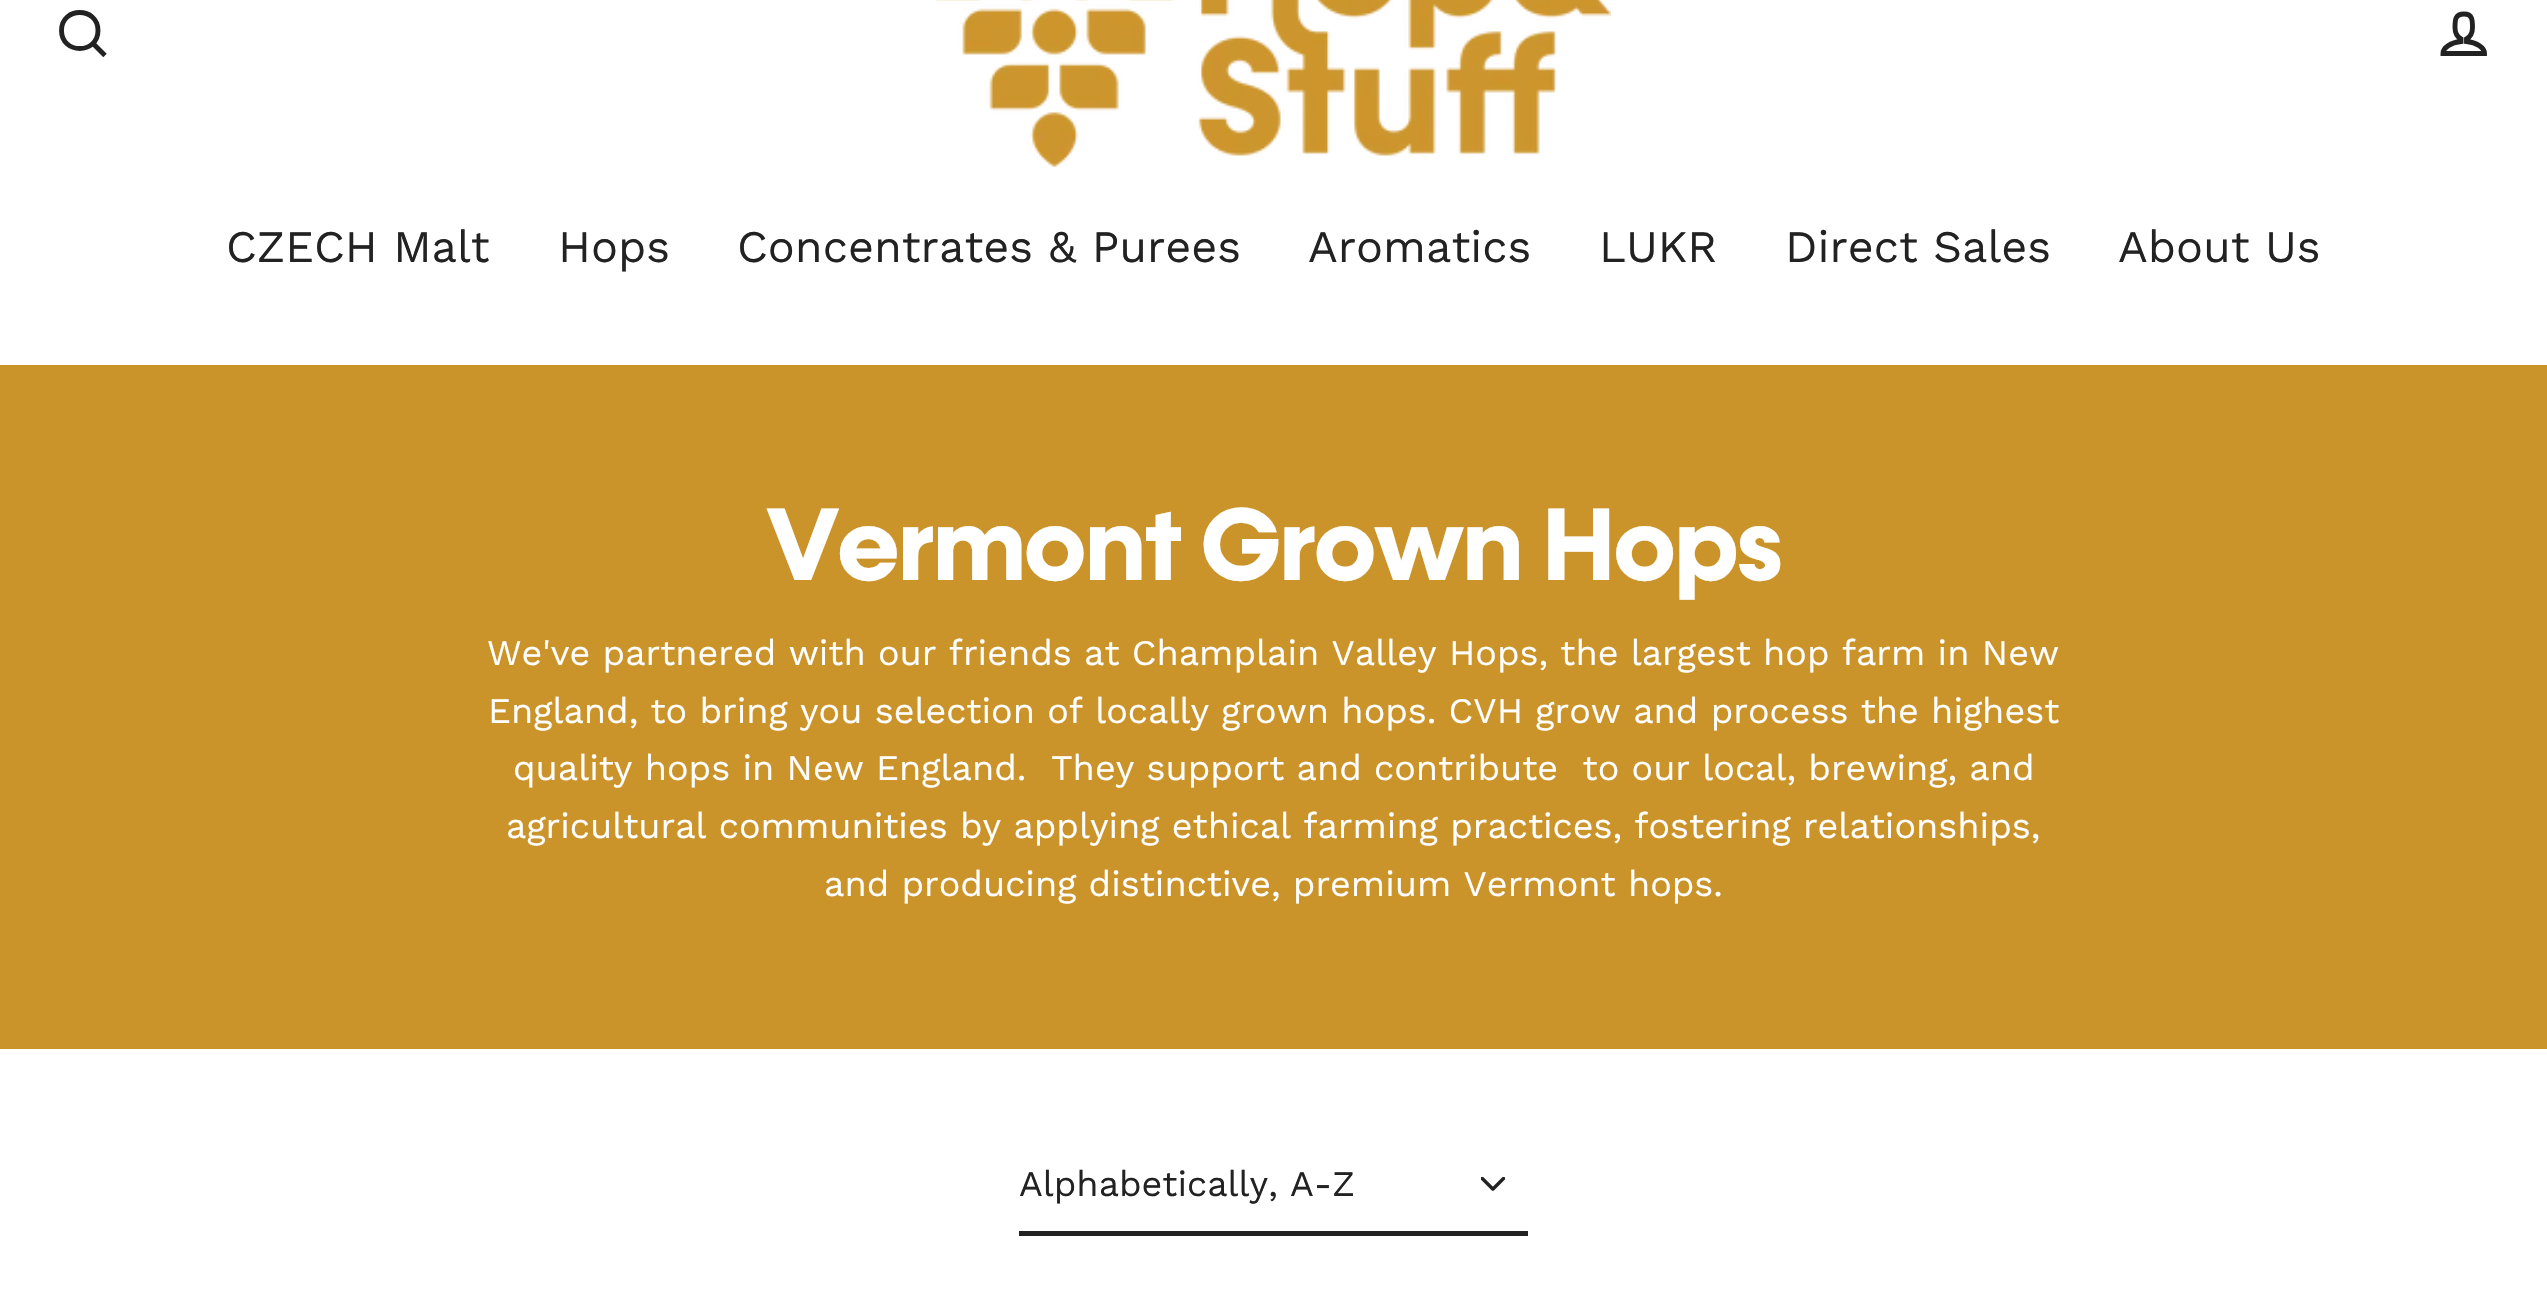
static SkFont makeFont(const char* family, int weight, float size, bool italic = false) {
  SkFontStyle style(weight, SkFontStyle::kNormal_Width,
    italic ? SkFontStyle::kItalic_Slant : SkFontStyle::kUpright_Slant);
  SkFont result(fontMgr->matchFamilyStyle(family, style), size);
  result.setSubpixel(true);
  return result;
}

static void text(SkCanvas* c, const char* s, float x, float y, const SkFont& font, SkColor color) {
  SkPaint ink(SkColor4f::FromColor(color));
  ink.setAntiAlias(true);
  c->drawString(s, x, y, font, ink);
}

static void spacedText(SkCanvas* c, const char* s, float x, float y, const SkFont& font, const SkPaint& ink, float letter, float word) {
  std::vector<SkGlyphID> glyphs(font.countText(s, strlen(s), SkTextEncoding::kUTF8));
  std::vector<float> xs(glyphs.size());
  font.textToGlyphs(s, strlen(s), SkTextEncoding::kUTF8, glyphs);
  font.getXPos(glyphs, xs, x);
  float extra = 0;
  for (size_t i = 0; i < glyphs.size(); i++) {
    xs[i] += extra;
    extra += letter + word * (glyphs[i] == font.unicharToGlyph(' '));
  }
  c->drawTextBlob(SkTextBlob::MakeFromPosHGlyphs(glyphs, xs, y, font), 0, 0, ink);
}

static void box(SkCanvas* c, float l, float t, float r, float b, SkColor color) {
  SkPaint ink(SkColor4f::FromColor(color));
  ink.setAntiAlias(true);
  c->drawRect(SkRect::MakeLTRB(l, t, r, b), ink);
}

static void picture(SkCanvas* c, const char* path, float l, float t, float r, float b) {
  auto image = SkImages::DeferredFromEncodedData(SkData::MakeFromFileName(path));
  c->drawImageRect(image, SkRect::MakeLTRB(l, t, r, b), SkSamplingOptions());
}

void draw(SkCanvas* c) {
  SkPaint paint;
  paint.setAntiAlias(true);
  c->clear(0xffffffff);
  paint.setStyle(SkPaint::kStroke_Style);
  paint.setStrokeWidth(4.9f);
  paint.setColor(0xff222222);
  c->drawPath(SkPathBuilder().moveTo(98, 30.5f).cubicTo(98, 54.5f, 61.5f, 54.5f, 61.5f, 30.5f).cubicTo(61.5f, 6.5f, 98, 6.5f, 98, 30.5f).close().moveTo(105, 55.5f).lineTo(93, 43.5f).detach(), paint);
  picture(c, "img_01.png", 936, 0, 1611, 167);
  c->drawPath(SkPathBuilder().moveTo(2466.5f, 41.5f).lineTo(2466.5f, 39).cubicTo(2470, 37, 2472.5f, 32.5f, 2472.5f, 27.5f).cubicTo(2472.5f, 20, 2472.5f, 14, 2464, 14).cubicTo(2455, 14, 2455, 20, 2455, 27.5f).cubicTo(2455, 32.5f, 2457.5f, 37, 2461, 39).lineTo(2461, 41.5f).cubicTo(2451, 42.5f, 2443, 47.5f, 2443, 53.5f).lineTo(2484.5f, 53.5f).cubicTo(2484.5f, 47.5f, 2476.5f, 42.5f, 2466.5f, 41.5f).close().detach(), paint);
  SkFont face1 = makeFont("Work Sans", 400, 45);
  text(c, "CZECH Malt", 226, 262, face1, 0xff222222);
  text(c, "Hops", 558, 262, face1, 0xff222222);
  text(c, "Concentrates & Purees", 737, 262, face1, 0xff222222);
  text(c, "Aromatics", 1308, 262, face1, 0xff222222);
  text(c, "LUKR", 1599, 262, face1, 0xff222222);
  text(c, "Direct Sales", 1785, 262, face1, 0xff222222);
  text(c, "About Us", 2118, 262, face1, 0xff222222);
  box(c, 0, 365, 2547, 1049, 0xffcb942b);
  SkFont face2 = makeFont("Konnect", 700, 103.5f);
  paint.setStyle(SkPaint::kFill_Style);
  paint.setColor(0xffffffff);
  spacedText(c, "Vermont Grown Hops", 766, 580, face2, paint, -2.6f, 0);
  SkFont face3 = makeFont("Work Sans", 400, 36);
  text(c, "We've partnered with our friends at Champlain Valley Hops, the largest hop farm in New", 487, 665, face3, 0xffffffff);
  text(c, "England, to bring you selection of locally grown hops. CVH grow and process the highest", 488, 723, face3, 0xffffffff);
  text(c, "quality hops in New England.  They support and contribute  to our local, brewing, and", 513, 780, face3, 0xffffffff);
  text(c, "agricultural communities by applying ethical farming practices, fostering relationships,", 506, 838, face3, 0xffffffff);
  text(c, "and producing distinctive, premium Vermont hops.", 824, 896, face3, 0xffffffff);
  picture(c, "img_02.png", 1481, 1177, 1505, 1191);
  box(c, 1019, 1231, 1528, 1236, 0xff222222);
  text(c, "Alphabetically, A-Z", 1019, 1196, face3, 0xff222222);
}
